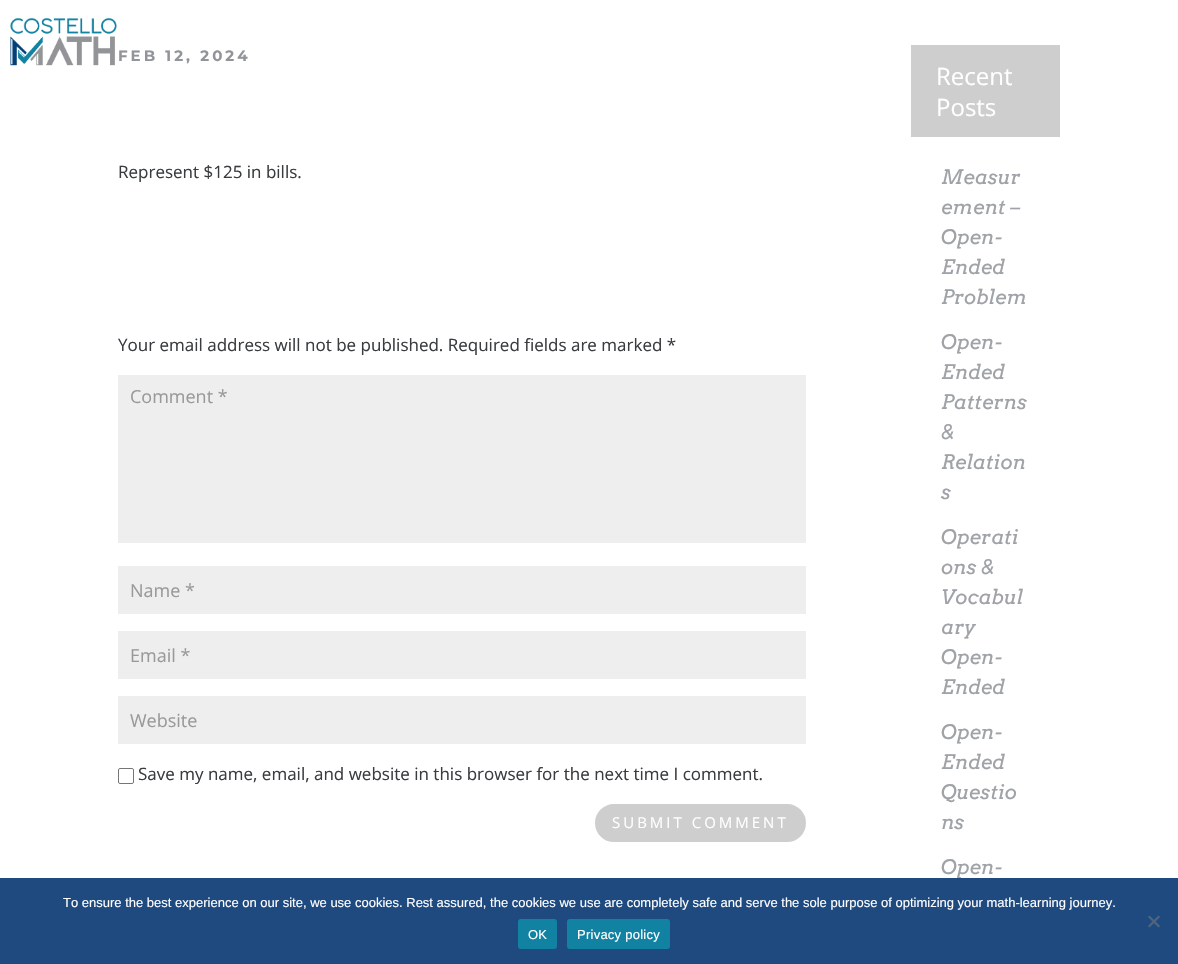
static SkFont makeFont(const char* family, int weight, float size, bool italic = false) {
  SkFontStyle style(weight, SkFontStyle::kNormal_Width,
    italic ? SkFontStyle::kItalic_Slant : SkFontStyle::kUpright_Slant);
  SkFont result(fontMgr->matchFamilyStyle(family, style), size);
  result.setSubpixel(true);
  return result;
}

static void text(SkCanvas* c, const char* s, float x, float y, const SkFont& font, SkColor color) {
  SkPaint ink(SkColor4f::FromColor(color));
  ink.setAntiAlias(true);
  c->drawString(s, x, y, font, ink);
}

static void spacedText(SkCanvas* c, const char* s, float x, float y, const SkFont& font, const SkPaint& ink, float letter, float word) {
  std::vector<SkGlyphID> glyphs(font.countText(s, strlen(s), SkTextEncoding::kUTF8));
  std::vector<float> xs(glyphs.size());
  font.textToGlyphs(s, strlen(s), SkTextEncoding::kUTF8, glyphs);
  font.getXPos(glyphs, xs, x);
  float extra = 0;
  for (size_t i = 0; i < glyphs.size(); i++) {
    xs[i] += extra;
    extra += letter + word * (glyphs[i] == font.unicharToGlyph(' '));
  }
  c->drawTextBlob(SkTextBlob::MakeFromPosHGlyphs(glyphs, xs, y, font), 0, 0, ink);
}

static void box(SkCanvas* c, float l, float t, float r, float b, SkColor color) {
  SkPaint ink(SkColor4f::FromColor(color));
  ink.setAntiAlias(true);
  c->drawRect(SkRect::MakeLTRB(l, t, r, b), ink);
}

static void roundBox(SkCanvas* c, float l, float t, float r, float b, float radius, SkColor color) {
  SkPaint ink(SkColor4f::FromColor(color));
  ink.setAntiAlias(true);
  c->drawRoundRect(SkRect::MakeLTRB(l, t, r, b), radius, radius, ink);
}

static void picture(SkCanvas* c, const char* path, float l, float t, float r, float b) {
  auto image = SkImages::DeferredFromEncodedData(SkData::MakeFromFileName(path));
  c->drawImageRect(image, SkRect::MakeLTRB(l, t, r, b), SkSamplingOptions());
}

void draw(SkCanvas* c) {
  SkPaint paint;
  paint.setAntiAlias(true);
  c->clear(0xffffffff);
  picture(c, "img_01.png", 10, 17, 117, 66);
  SkFont face1 = makeFont("Montserrat", 700, 15);
  paint.setColor(0xff919599);
  spacedText(c, "FEB 12, 2024", 118, 61, face1, paint, 3, 0);
  SkFont face2 = makeFont("Open Sans", 400, 17);
  text(c, "Represent $125 in bills.", 118, 178, face2, 0xff393d3f);
  text(c, "Your email address will not be published. Required fields are marked *", 118, 351, face2, 0xff393d3f);
  box(c, 118, 375, 806, 543, 0xffeeeeee);
  SkFont face3 = makeFont("Open Sans", 400, 18);
  text(c, "Comment *", 130, 403, face3, 0xff999999);
  box(c, 118, 566, 806, 614, 0xffeeeeee);
  text(c, "Name *", 130, 597, face3, 0xff999999);
  box(c, 118, 631, 806, 679, 0xffeeeeee);
  text(c, "Email *", 130, 662, face3, 0xff999999);
  box(c, 118, 696, 806, 744, 0xffeeeeee);
  text(c, "Website", 130, 727, face3, 0xff999999);
  paint.setStyle(SkPaint::kStroke_Style);
  paint.setStrokeWidth(1);
  paint.setColor(0xff767676);
  c->drawRoundRect(SkRect::MakeLTRB(118.5f, 768.5f, 133.5f, 783.5f), 1.5f, 1.5f, paint);
  text(c, "Save my name, email, and website in this browser for the next time I comment.", 138, 780, face2, 0xff393d3f);
  paint.setStyle(SkPaint::kFill_Style);
  paint.setColor(0xffcecece);
  c->drawRoundRect(SkRect::MakeLTRB(596, 805, 805, 841), 18, 18, paint);
  paint.setStyle(SkPaint::kStroke_Style);
  paint.setStrokeWidth(2);
  c->drawRoundRect(SkRect::MakeLTRB(596, 805, 805, 841), 18, 18, paint);
  SkFont face4 = makeFont("Open Sans", 400, 15);
  paint.setStyle(SkPaint::kFill_Style);
  paint.setColor(0xffffffff);
  spacedText(c, "SUBMIT COMMENT", 612, 828, face4, paint, 3, 0);
  box(c, 911, 45, 1060, 137, 0xffcecece);
  SkFont face5 = makeFont("Open Sans", 400, 24);
  text(c, "Recent", 936, 85, face5, 0xffffffff);
  text(c, "Posts", 936, 116, face5, 0xffffffff);
  SkFont face6 = makeFont("Arvo", 400, 20, true);
  text(c, "Measur", 941, 184, face6, 0xff9fa3a7);
  text(c, "ement –", 941, 214, face6, 0xff9fa3a7);
  text(c, "Open-", 941, 244, face6, 0xff9fa3a7);
  text(c, "Ended", 941, 274, face6, 0xff9fa3a7);
  text(c, "Problem", 941, 304, face6, 0xff9fa3a7);
  text(c, "Open-", 941, 349, face6, 0xff9fa3a7);
  text(c, "Ended", 941, 379, face6, 0xff9fa3a7);
  text(c, "Patterns", 941, 409, face6, 0xff9fa3a7);
  text(c, "&", 941, 439, face6, 0xff9fa3a7);
  text(c, "Relation", 941, 469, face6, 0xff9fa3a7);
  text(c, "s", 941, 499, face6, 0xff9fa3a7);
  text(c, "Operati", 941, 544, face6, 0xff9fa3a7);
  text(c, "ons &", 941, 574, face6, 0xff9fa3a7);
  text(c, "Vocabul", 941, 604, face6, 0xff9fa3a7);
  text(c, "ary", 941, 634, face6, 0xff9fa3a7);
  text(c, "Open-", 941, 664, face6, 0xff9fa3a7);
  text(c, "Ended", 941, 694, face6, 0xff9fa3a7);
  text(c, "Open-", 941, 739, face6, 0xff9fa3a7);
  text(c, "Ended", 941, 769, face6, 0xff9fa3a7);
  text(c, "Questio", 941, 799, face6, 0xff9fa3a7);
  text(c, "ns", 941, 829, face6, 0xff9fa3a7);
  text(c, "Open-", 941, 874, face6, 0xff9fa3a7);
  box(c, 0, 878, 1178, 964, 0xf2134078);
  SkFont face7 = makeFont("Liberation Sans", 400, 13);
  text(c, "To ensure the best experience on our site, we use cookies. Rest assured, the cookies we use are completely safe and serve the sole purpose of optimizing your math-learning journey.", 63, 907, face7, 0xffffffff);
  paint.setColor(0xff4f657f);
  c->drawPath(SkPathBuilder().moveTo(1158.5f, 915.5f).lineTo(1160, 917).lineTo(1149.5f, 927.5f).lineTo(1148, 926).close().detach(), paint);
  c->drawPath(SkPathBuilder().moveTo(1148, 917).lineTo(1149.5f, 915.5f).lineTo(1160, 926).lineTo(1158.5f, 927.5f).close().detach(), paint);
  roundBox(c, 518, 919, 557, 949, 3, 0xff1282a2);
  paint.setColor(0xffffffff);
  spacedText(c, "OK", 528, 939, face7, paint, 0.25f, 0);
  roundBox(c, 567, 919, 670, 949, 3, 0xff1282a2);
  spacedText(c, "Privacy policy", 577, 939, face7, paint, 0.25f, 0);
}
